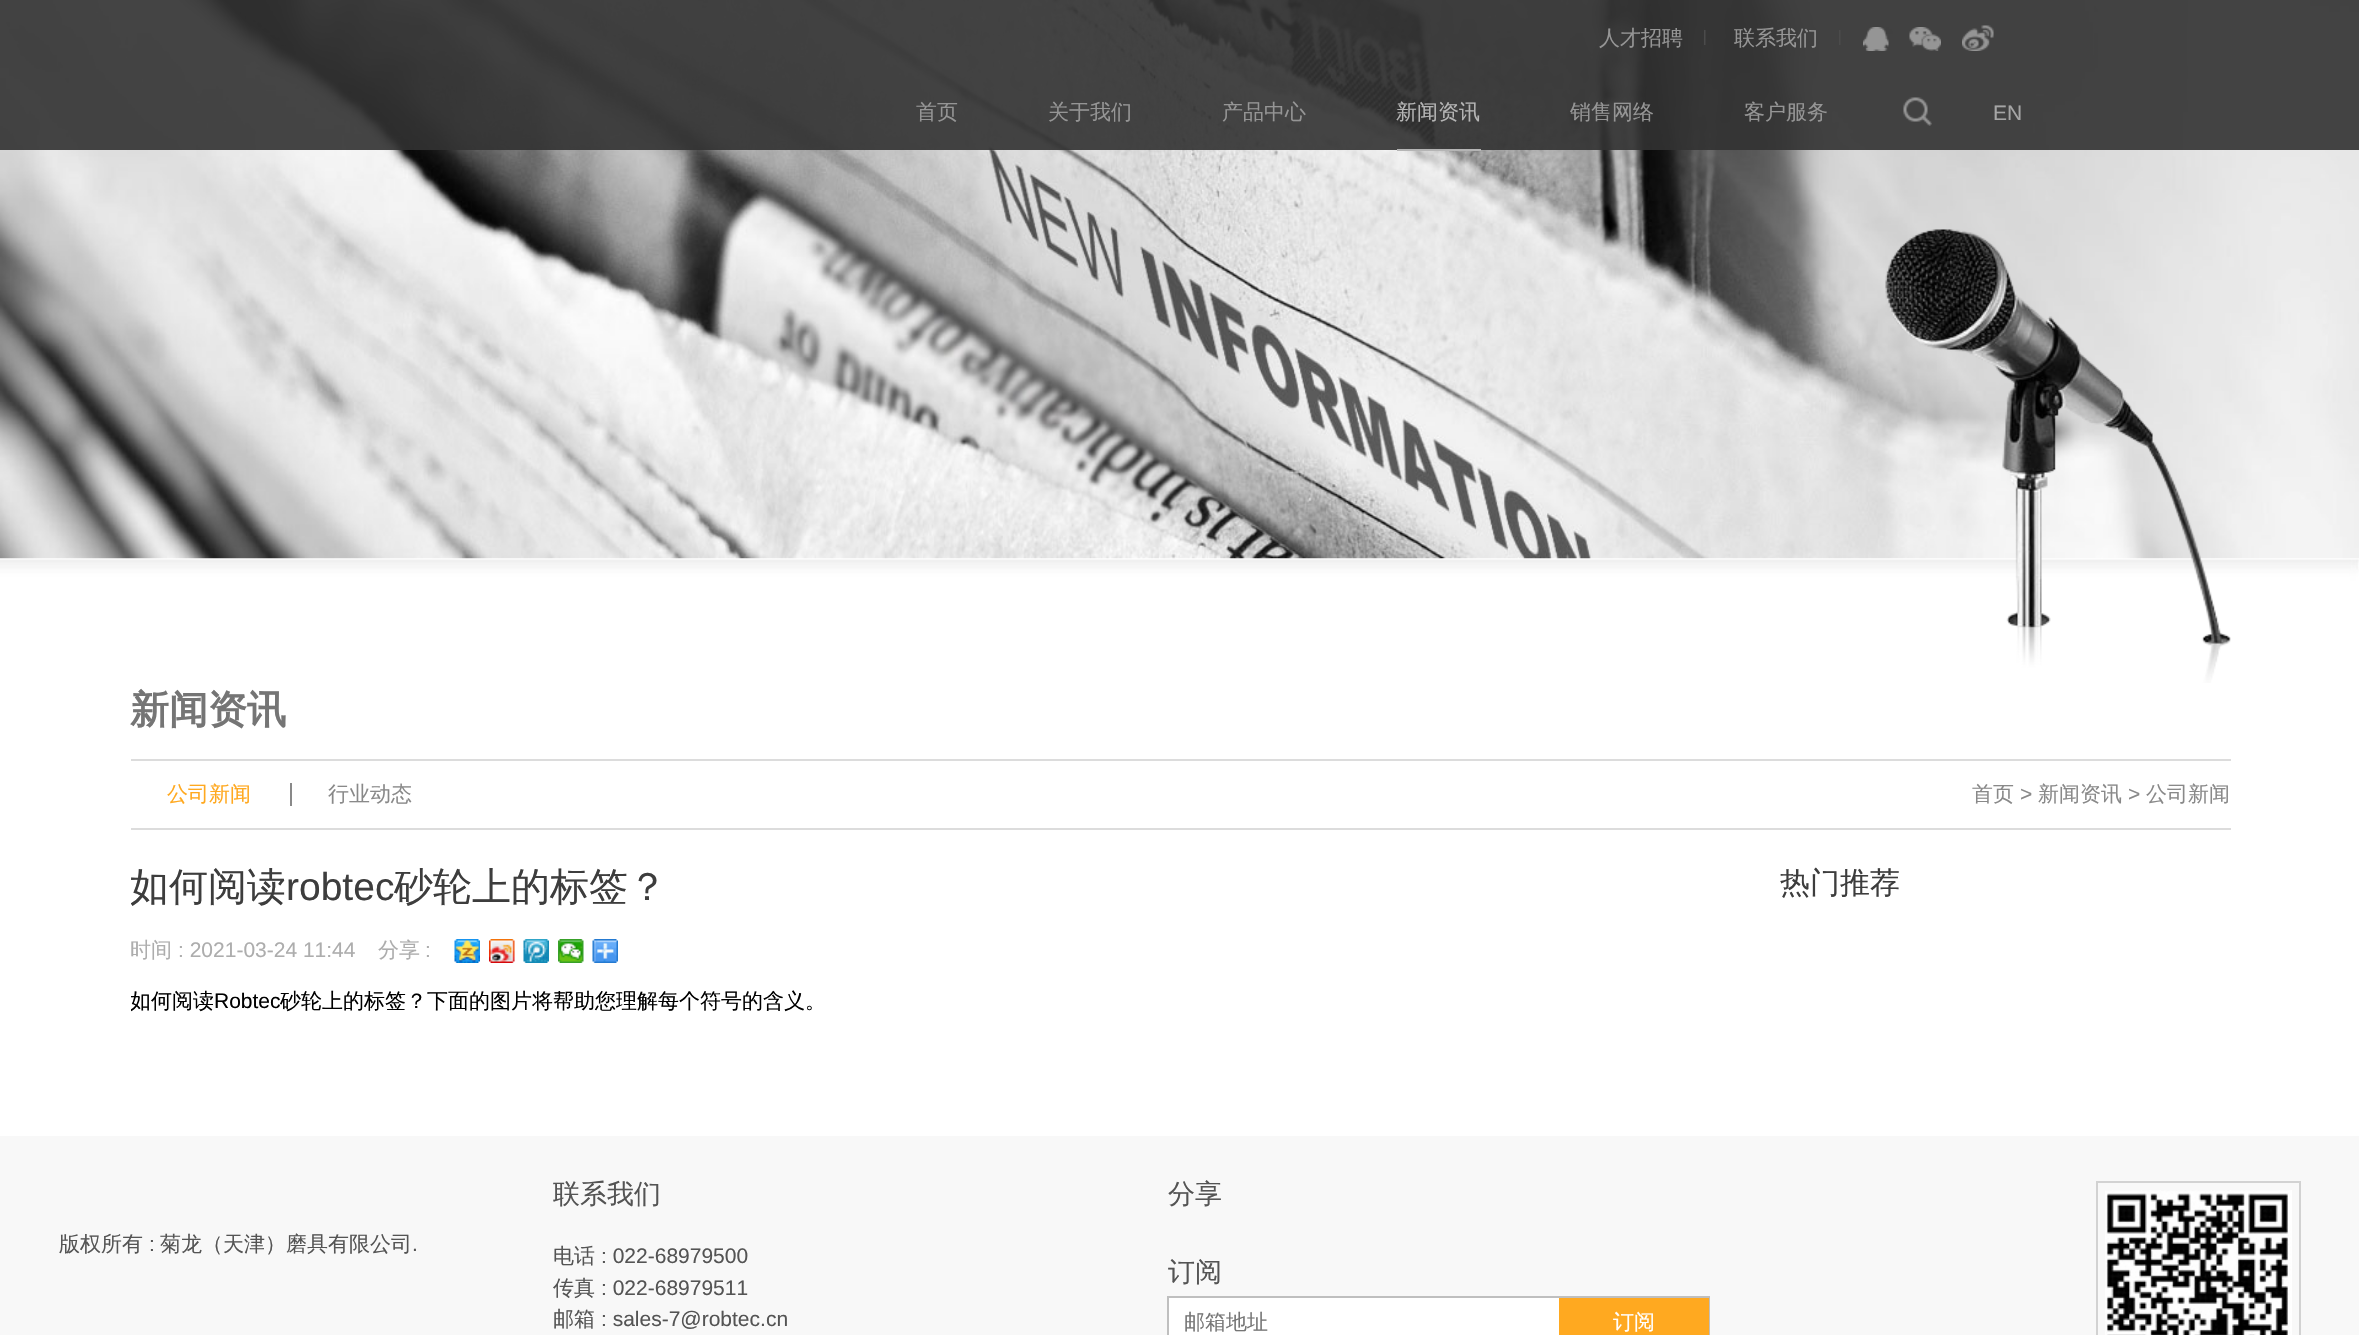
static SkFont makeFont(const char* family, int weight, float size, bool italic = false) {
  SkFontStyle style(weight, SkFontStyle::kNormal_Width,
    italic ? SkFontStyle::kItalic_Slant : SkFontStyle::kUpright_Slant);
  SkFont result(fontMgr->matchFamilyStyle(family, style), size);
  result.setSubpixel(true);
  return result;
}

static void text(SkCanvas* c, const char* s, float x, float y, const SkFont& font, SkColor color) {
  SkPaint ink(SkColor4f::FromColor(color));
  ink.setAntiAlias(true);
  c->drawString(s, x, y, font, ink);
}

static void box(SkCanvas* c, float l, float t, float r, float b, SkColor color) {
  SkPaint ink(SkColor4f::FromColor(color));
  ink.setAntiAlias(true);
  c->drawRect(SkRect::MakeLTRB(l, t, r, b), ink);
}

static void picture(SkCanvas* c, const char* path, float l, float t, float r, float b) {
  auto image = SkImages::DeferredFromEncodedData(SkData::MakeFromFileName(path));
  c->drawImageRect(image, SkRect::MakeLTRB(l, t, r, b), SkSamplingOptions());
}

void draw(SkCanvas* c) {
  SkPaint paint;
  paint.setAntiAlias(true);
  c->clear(0xffffffff);
  picture(c, "img_01.png", 0, 0, 2359, 600);
  picture(c, "img_02.png", 1885, 229, 2231, 683);
  box(c, 0, 0, 2359, 150, 0xe6313131);
  picture(c, "img_03.png", 1704, 30, 1706, 45);
  SkFont face1 = makeFont("WenQuanYi Zen Hei", 500, 21);
  text(c, "人才招聘", 1599, 45, face1, 0xff959595);
  picture(c, "img_04.png", 1839, 30, 1841, 45);
  text(c, "联系我们", 1734, 45, face1, 0xff959595);
  picture(c, "img_05.png", 1863, 27, 1889, 51);
  picture(c, "img_06.png", 1909, 27, 1941, 51);
  picture(c, "img_07.png", 1962, 25, 1994, 51);
  text(c, "首页", 916, 119, face1, 0xff959595);
  text(c, "关于我们", 1048, 119, face1, 0xff959595);
  text(c, "产品中心", 1222, 119, face1, 0xff959595);
  text(c, "新闻资讯", 1396, 119, face1, 0xffb5b5b5);
  box(c, 1397, 149, 1481, 151, 0xffb5b5b5);
  text(c, "销售网络", 1570, 119, face1, 0xff959595);
  text(c, "客户服务", 1744, 119, face1, 0xff959595);
  picture(c, "img_08.png", 1903, 97, 1932, 126);
  SkFont face2 = makeFont("Liberation Sans", 400, 21);
  text(c, "EN", 1993, 120, face2, 0xffa5a5a5);
  SkFont face3 = makeFont("WenQuanYi Zen Hei", 700, 39);
  text(c, "新闻资讯", 130, 723, face3, 0xff757575);
  box(c, 131, 759, 2231, 761, 0xffdcdcdc);
  box(c, 131, 828, 2231, 830, 0xffdcdcdc);
  box(c, 290, 783, 292, 806, 0xff898989);
  text(c, "公司新闻", 167, 801, face1, 0xffffa920);
  text(c, "行业动态", 328, 801, face1, 0xff898989);
  text(c, "首页", 1972, 801, face1, 0xff898989);
  text(c, ">", 2020, 801, face2, 0xff898989);
  text(c, "新闻资讯", 2038, 801, face1, 0xff898989);
  text(c, ">", 2128, 801, face2, 0xff898989);
  text(c, "公司新闻", 2146, 801, face1, 0xff898989);
  c->save();
  c->clipRect(SkRect::MakeLTRB(131, 690, 2231, 1046));
  SkFont face4 = makeFont("WenQuanYi Zen Hei", 500, 39);
  text(c, "如何阅读", 130, 900, face4, 0xff3d3d3d);
  c->restore();
  SkFont face5 = makeFont("Liberation Sans", 400, 39);
  text(c, "robtec", 286, 900, face5, 0xff3d3d3d);
  text(c, "砂轮上的标签？", 394, 900, face4, 0xff3d3d3d);
  text(c, "时间", 130, 957, face1, 0xffadadad);
  text(c, ": 2021-03-24 11:44", 178, 957, face2, 0xffadadad);
  text(c, "分享", 378, 957, face1, 0xffadadad);
  text(c, ":", 425, 957, face2, 0xffadadad);
  picture(c, "img_09.png", 454, 939, 480, 963);
  picture(c, "img_10.png", 489, 939, 515, 963);
  picture(c, "img_11.png", 523, 939, 549, 963);
  picture(c, "img_12.png", 558, 939, 584, 963);
  picture(c, "img_13.png", 592, 939, 618, 963);
  c->save();
  c->clipRect(SkRect::MakeLTRB(131, 690, 2231, 1046));
  text(c, "如何阅读", 130, 1008, face1, 0xff000000);
  c->restore();
  text(c, "Robtec", 214, 1008, face2, 0xff000000);
  text(c, "砂轮上的标签？下面的图片将帮助您理解每个符号的含义。", 280, 1008, face1, 0xff000000);
  SkFont face6 = makeFont("WenQuanYi Zen Hei", 500, 30);
  text(c, "热门推荐", 1780, 893, face6, 0xff3d3d3d);
  box(c, 0, 1136, 2359, 1335, 0xfff8f8f8);
  text(c, "版权所有", 59, 1251, face1, 0xff545454);
  text(c, ":", 149, 1251, face2, 0xff545454);
  text(c, "菊龙（天津）磨具有限公司", 160, 1251, face1, 0xff545454);
  text(c, ".", 412, 1251, face2, 0xff545454);
  SkFont face7 = makeFont("WenQuanYi Zen Hei", 500, 27);
  text(c, "联系我们", 553, 1203, face7, 0xff545454);
  text(c, "电话", 553, 1263, face1, 0xff545454);
  text(c, ": 022-68979500", 601, 1263, face2, 0xff545454);
  text(c, "传真", 553, 1295, face1, 0xff545454);
  text(c, ": 022-68979511", 601, 1295, face2, 0xff545454);
  text(c, "邮箱", 553, 1326, face1, 0xff545454);
  text(c, ": sales-7@robtec.cn", 601, 1326, face2, 0xff545454);
  text(c, "分享", 1168, 1203, face7, 0xff545454);
  text(c, "订阅", 1168, 1281, face7, 0xff545454);
  paint.setStyle(SkPaint::kStroke_Style);
  paint.setStrokeWidth(2);
  paint.setColor(0xffbfbfbf);
  c->drawRect(SkRect::MakeLTRB(1168, 1297, 1709, 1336), paint);
  box(c, 1169, 1298, 1559, 1335, 0xffffffff);
  text(c, "邮箱地址", 1184, 1329, face1, 0xff757575);
  box(c, 1559, 1298, 1709, 1335, 0xffffa920);
  text(c, "订阅", 1613, 1329, face1, 0xffffffff);
  paint.setColor(0xffd2d2d2);
  c->drawRect(SkRect::MakeLTRB(2097, 1182, 2300, 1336), paint);
  picture(c, "img_14.png", 2105, 1190, 2292, 1335);
}
